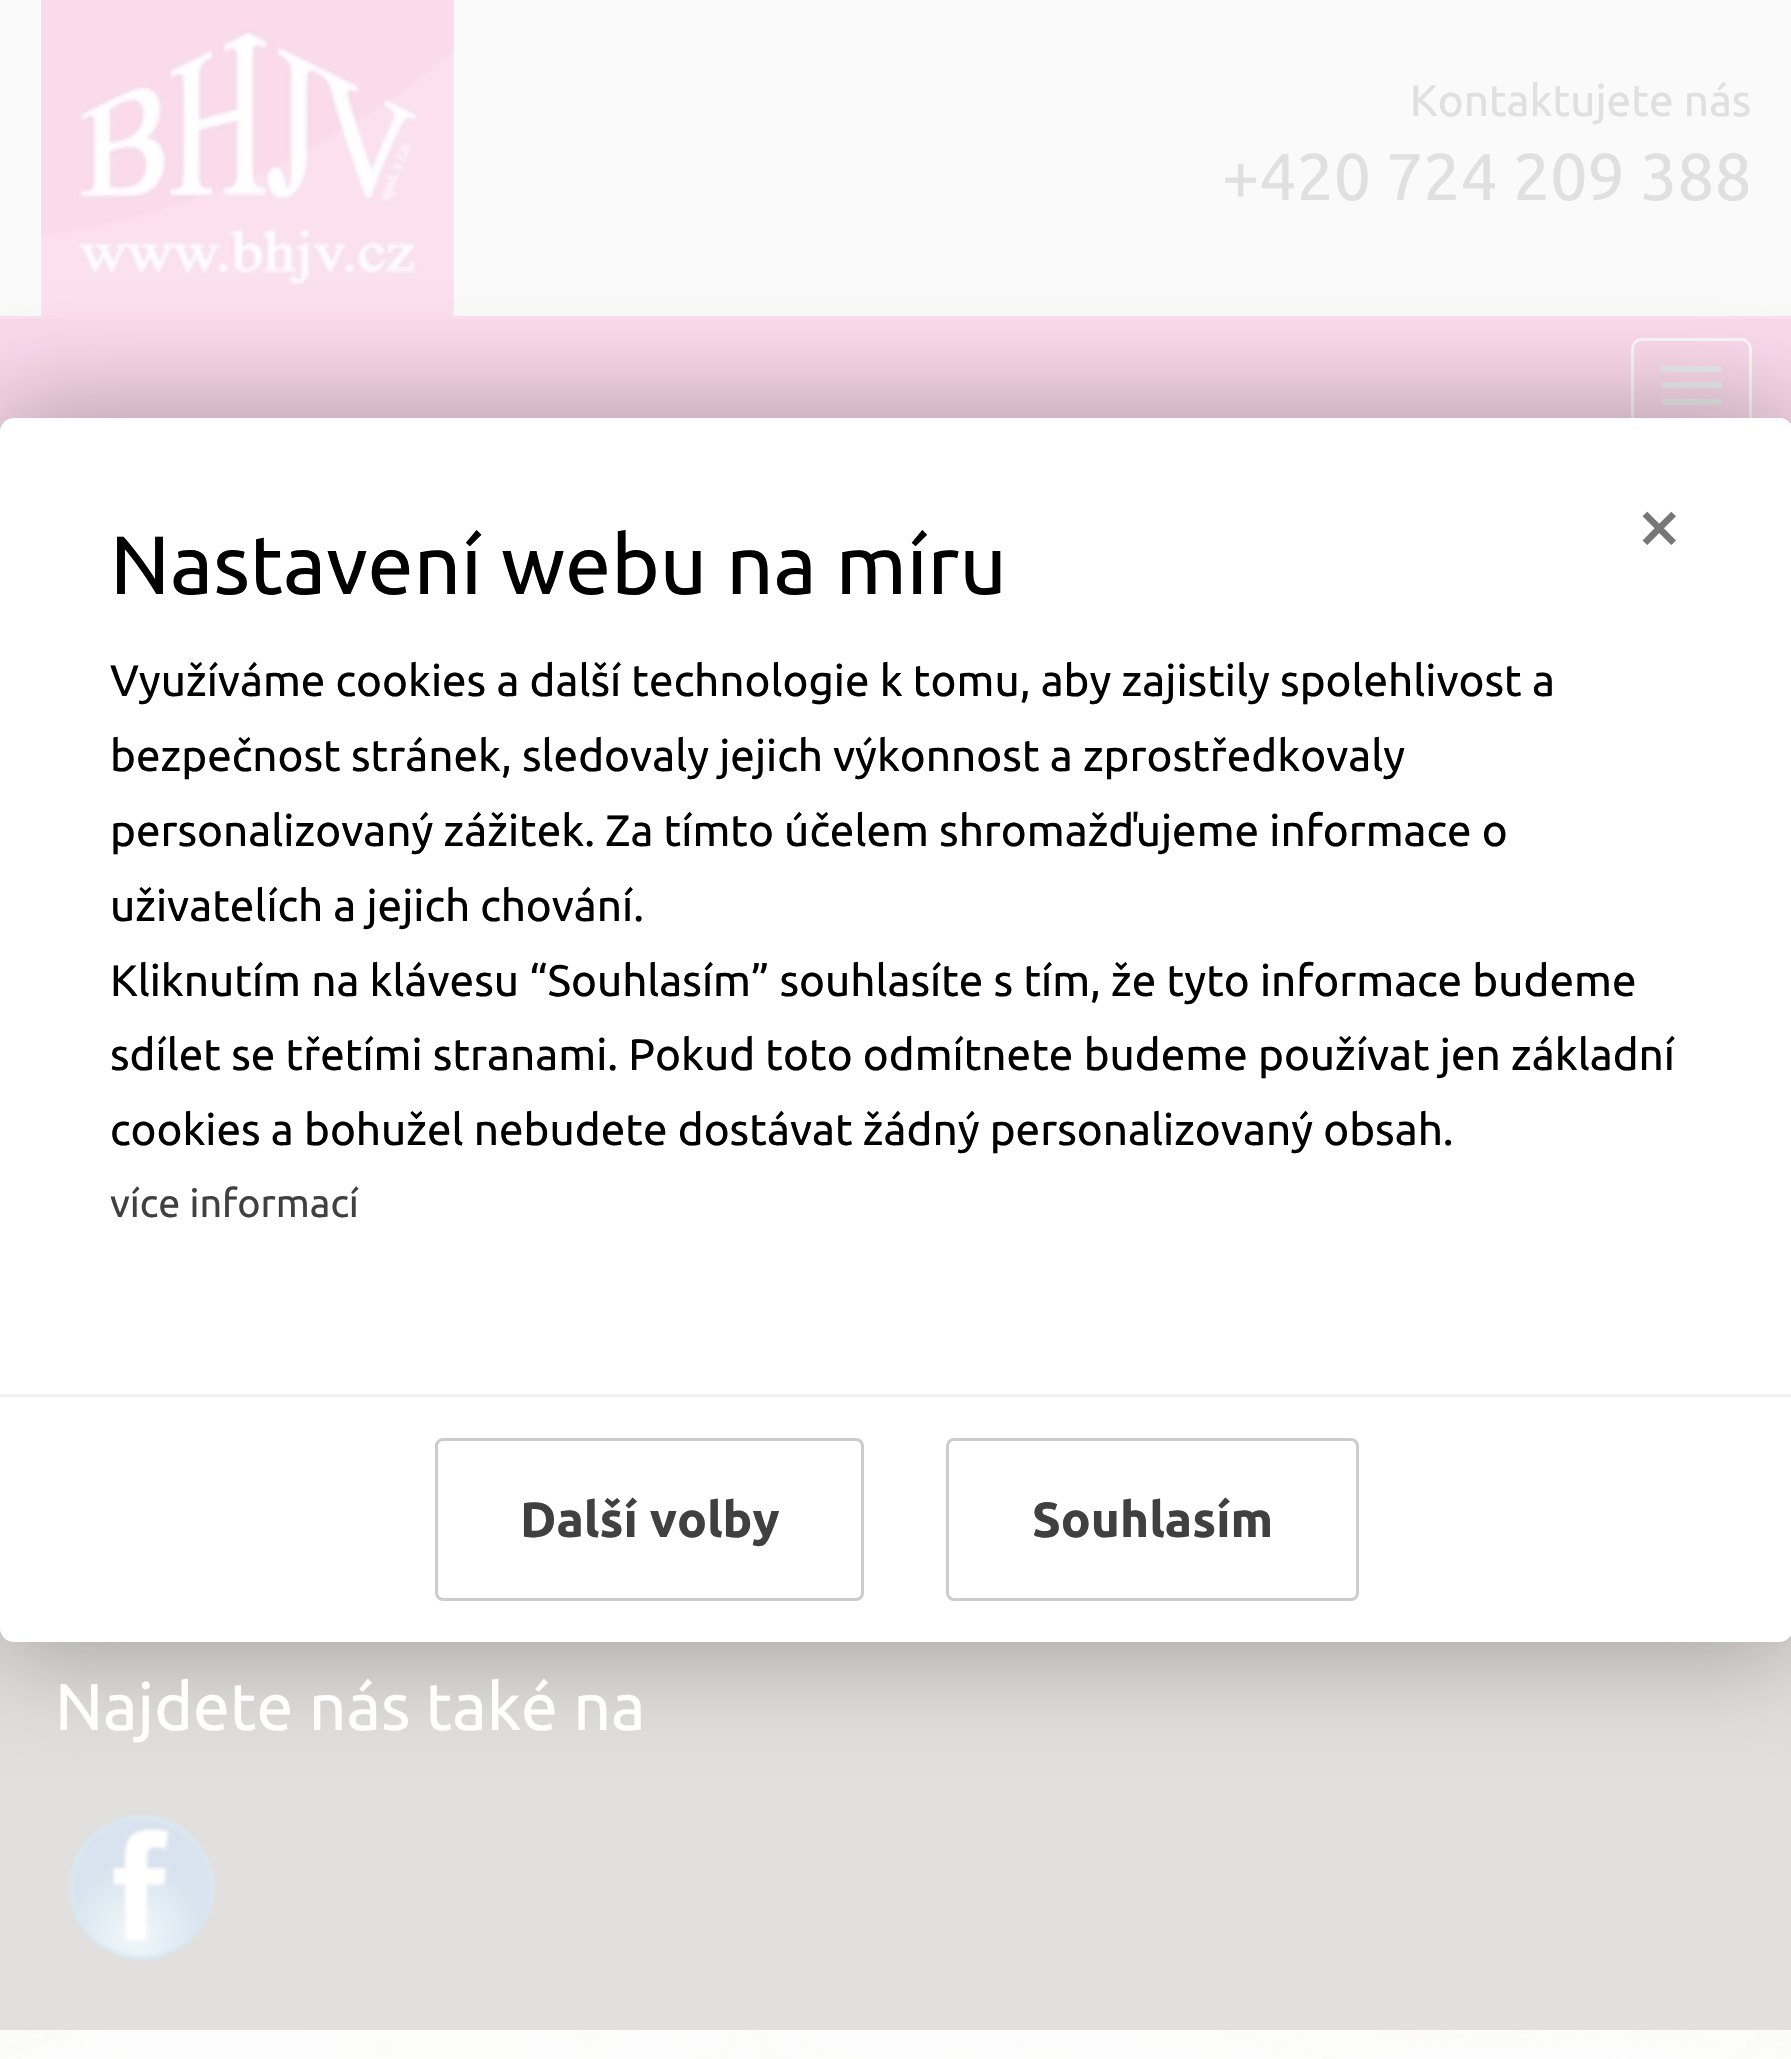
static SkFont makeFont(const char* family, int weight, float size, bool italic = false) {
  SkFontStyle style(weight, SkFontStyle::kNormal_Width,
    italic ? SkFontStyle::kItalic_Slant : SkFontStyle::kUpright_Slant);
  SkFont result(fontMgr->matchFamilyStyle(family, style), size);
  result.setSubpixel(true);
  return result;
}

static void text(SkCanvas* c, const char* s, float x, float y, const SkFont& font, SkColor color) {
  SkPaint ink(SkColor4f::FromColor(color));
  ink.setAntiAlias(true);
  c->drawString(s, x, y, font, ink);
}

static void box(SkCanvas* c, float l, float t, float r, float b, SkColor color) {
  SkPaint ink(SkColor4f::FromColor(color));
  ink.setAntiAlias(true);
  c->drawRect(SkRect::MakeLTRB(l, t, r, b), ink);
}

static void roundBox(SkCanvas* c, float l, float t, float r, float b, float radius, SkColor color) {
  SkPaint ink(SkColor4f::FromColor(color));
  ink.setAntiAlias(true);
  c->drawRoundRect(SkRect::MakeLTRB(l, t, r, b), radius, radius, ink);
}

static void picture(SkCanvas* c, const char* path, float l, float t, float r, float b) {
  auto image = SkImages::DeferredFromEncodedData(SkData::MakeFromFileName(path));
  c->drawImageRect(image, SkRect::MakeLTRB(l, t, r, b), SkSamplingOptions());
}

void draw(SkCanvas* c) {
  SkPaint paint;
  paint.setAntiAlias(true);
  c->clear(0xffffffff);
  picture(c, "img_01.png", 0, 2030, 1791, 2059);
  box(c, 0, 0, 1791, 316, 0xfffafafb);
  picture(c, "img_02.png", 41, 0, 454, 316);
  SkFont face1 = makeFont("Ubuntu", 400, 44);
  text(c, "Kontaktujete nás", 1410, 116, face1, 0xffe0e0e0);
  SkFont face2 = makeFont("Ubuntu", 400, 66);
  text(c, "+420 724 209 388", 1222, 200, face2, 0xffe0e0e0);
  box(c, 0, 319, 1791, 432, 0xfffbdaec);
  box(c, 0, 316, 1791, 319, 0xfffce0ef);
  paint.setStyle(SkPaint::kStroke_Style);
  paint.setStrokeWidth(3);
  paint.setColor(0xfffafafa);
  c->drawRoundRect(SkRect::MakeLTRB(1632.5f, 339.5f, 1750.5f, 430.5f), 9.5f, 9.5f, paint);
  roundBox(c, 1661, 366, 1722, 372, 3, 0xffededed);
  roundBox(c, 1661, 382, 1722, 388, 3, 0xffededed);
  roundBox(c, 1661, 399, 1722, 405, 3, 0xffededed);
  box(c, 0, 1628, 1791, 2030, 0xffe1e0de);
  picture(c, "img_03.png", 68, 1813, 216, 1962);
  paint.setStyle(SkPaint::kFill_Style);
  paint.setColor(0x4d000000);
  paint.setMaskFilter(SkMaskFilter::MakeBlur(kNormal_SkBlurStyle, 55));
  c->drawRoundRect(SkRect::MakeLTRB(-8, 410, 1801, 1650), 22, 22, paint);
  paint.setMaskFilter(nullptr);
  roundBox(c, 0, 418, 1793, 1642, 14, 0xffffffff);
  SkFont face3 = makeFont("Ubuntu", 400, 82.5f);
  text(c, "Nastavení webu na míru", 110, 594, face3, 0xff000000);
  text(c, "×", 1636, 553, face3, 0xff777777);
  text(c, "Využíváme cookies a další technologie k tomu, aby zajistily spolehlivost a", 110, 696, face1, 0xff000000);
  text(c, "bezpečnost stránek, sledovaly jejich výkonnost a zprostředkovaly", 110, 771, face1, 0xff000000);
  text(c, "personalizovaný zážitek. Za tímto účelem shromažďujeme informace o", 110, 846, face1, 0xff000000);
  text(c, "uživatelích a jejich chování.", 110, 921, face1, 0xff000000);
  text(c, "Kliknutím na klávesu “Souhlasím” souhlasíte s tím, že tyto informace budeme", 110, 996, face1, 0xff000000);
  text(c, "sdílet se třetími stranami. Pokud toto odmítnete budeme používat jen základní", 110, 1070, face1, 0xff000000);
  text(c, "cookies a bohužel nebudete dostávat žádný personalizovaný obsah.", 110, 1145, face1, 0xff000000);
  SkFont face4 = makeFont("Ubuntu", 400, 39.5f);
  text(c, "více informací", 110, 1217, face4, 0xff404040);
  box(c, 0, 1394, 1791, 1397, 0xfff2f2f2);
  paint.setStyle(SkPaint::kStroke_Style);
  paint.setColor(0xffcccccc);
  c->drawRoundRect(SkRect::MakeLTRB(436.5f, 1439.5f, 862.5f, 1599.5f), 6.5f, 6.5f, paint);
  SkFont face5 = makeFont("Ubuntu", 700, 49.5f);
  text(c, "Další volby", 520, 1537, face5, 0xff404040);
  c->drawRoundRect(SkRect::MakeLTRB(947.5f, 1439.5f, 1357.5f, 1599.5f), 6.5f, 6.5f, paint);
  text(c, "Souhlasím", 1032, 1537, face5, 0xff404040);
  text(c, "Najdete nás také na", 55, 1730, face2, 0xffffffff);
}
